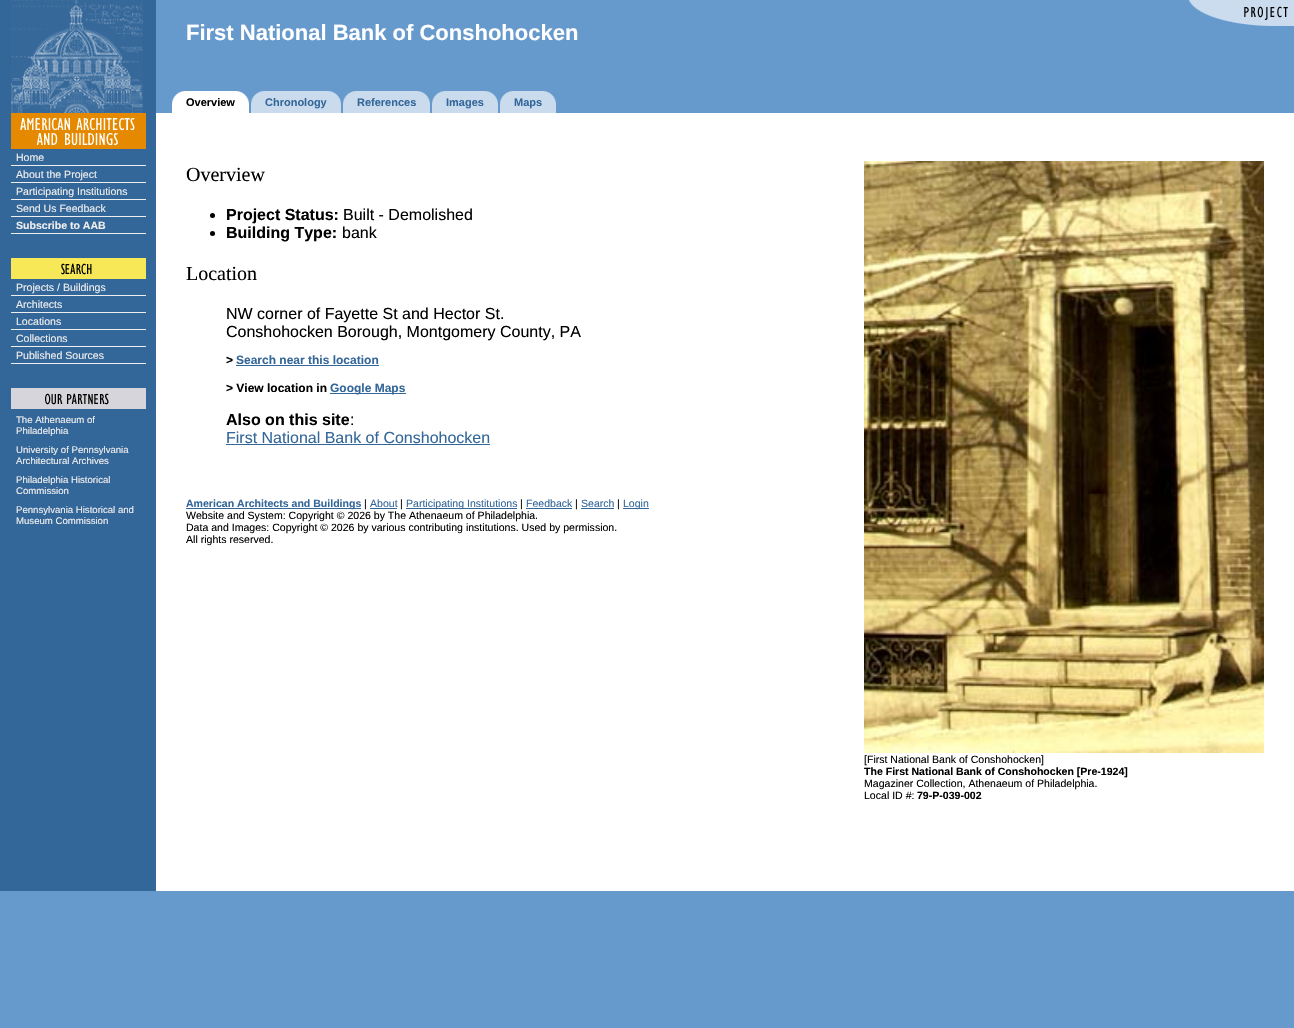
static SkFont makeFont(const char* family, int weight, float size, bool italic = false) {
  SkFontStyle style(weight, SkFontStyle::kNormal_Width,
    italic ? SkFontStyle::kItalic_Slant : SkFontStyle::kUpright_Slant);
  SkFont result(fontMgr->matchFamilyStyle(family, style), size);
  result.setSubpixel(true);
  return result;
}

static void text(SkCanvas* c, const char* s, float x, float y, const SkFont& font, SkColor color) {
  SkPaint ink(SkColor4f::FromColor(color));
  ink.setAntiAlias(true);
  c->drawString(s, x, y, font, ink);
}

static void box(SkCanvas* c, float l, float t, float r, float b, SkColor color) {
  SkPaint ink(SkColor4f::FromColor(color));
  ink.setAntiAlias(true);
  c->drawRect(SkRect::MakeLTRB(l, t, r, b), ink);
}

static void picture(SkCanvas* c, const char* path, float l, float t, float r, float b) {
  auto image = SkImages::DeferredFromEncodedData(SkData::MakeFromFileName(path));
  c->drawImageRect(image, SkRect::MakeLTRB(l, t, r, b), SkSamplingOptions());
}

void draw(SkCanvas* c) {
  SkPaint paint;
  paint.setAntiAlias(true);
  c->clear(0xff6699cc);
  box(c, 0, 0, 156, 891, 0xff336699);
  picture(c, "img_01.png", 11, 0, 143, 113);
  picture(c, "img_02.png", 1189, 0, 1294, 26);
  SkFont face1 = makeFont("Liberation Sans", 700, 22);
  text(c, "First National Bank of Conshohocken", 186, 40, face1, 0xffffffff);
  picture(c, "img_03.png", 172, 91, 186, 113);
  box(c, 186, 91, 235, 113, 0xffffffff);
  SkFont face2 = makeFont("Liberation Sans", 700, 11);
  text(c, "Overview", 186, 106, face2, 0xff000000);
  picture(c, "img_04.png", 235, 91, 249, 113);
  picture(c, "img_05.png", 251, 91, 265, 113);
  box(c, 265, 91, 327, 113, 0xffcadbed);
  text(c, "Chronology", 265, 106, face2, 0xff336699);
  picture(c, "img_06.png", 327, 91, 341, 113);
  picture(c, "img_05.png", 343, 91, 357, 113);
  box(c, 357, 91, 416, 113, 0xffcadbed);
  text(c, "References", 357, 106, face2, 0xff336699);
  picture(c, "img_06.png", 416, 91, 430, 113);
  picture(c, "img_05.png", 432, 91, 446, 113);
  box(c, 446, 91, 484, 113, 0xffcadbed);
  text(c, "Images", 446, 106, face2, 0xff336699);
  picture(c, "img_06.png", 484, 91, 498, 113);
  picture(c, "img_05.png", 500, 91, 514, 113);
  box(c, 514, 91, 542, 113, 0xffcadbed);
  text(c, "Maps", 514, 106, face2, 0xff336699);
  picture(c, "img_06.png", 542, 91, 556, 113);
  picture(c, "img_07.png", 11, 113, 146, 149);
  box(c, 11, 165, 146, 166, 0xffeeeeee);
  SkFont face3 = makeFont("Liberation Sans", 400, 10.55f);
  text(c, "Home", 16, 161, face3, 0xffeeeeee);
  box(c, 11, 182, 146, 183, 0xffeeeeee);
  text(c, "About the Project", 16, 178, face3, 0xffeeeeee);
  box(c, 11, 199, 146, 200, 0xffeeeeee);
  text(c, "Participating Institutions", 16, 195, face3, 0xffeeeeee);
  box(c, 11, 216, 146, 217, 0xffeeeeee);
  text(c, "Send Us Feedback", 16, 212, face3, 0xffeeeeee);
  box(c, 11, 233, 146, 234, 0xffeeeeee);
  SkFont face4 = makeFont("Liberation Sans", 700, 10.55f);
  text(c, "Subscribe to AAB", 16, 229, face4, 0xffeeeeee);
  picture(c, "img_08.png", 11, 258, 146, 279);
  box(c, 11, 295, 146, 296, 0xffeeeeee);
  text(c, "Projects / Buildings", 16, 291, face3, 0xffeeeeee);
  box(c, 11, 312, 146, 313, 0xffeeeeee);
  text(c, "Architects", 16, 308, face3, 0xffeeeeee);
  box(c, 11, 329, 146, 330, 0xffeeeeee);
  text(c, "Locations", 16, 325, face3, 0xffeeeeee);
  box(c, 11, 346, 146, 347, 0xffeeeeee);
  text(c, "Collections", 16, 342, face3, 0xffeeeeee);
  box(c, 11, 363, 146, 364, 0xffeeeeee);
  text(c, "Published Sources", 16, 359, face3, 0xffeeeeee);
  picture(c, "img_09.png", 11, 388, 146, 409);
  SkFont face5 = makeFont("Liberation Sans", 400, 9.6f);
  text(c, "The Athenaeum of", 16, 423, face5, 0xffeeeeee);
  text(c, "Philadelphia", 16, 434, face5, 0xffeeeeee);
  text(c, "University of Pennsylvania", 16, 453, face5, 0xffeeeeee);
  text(c, "Architectural Archives", 16, 464, face5, 0xffeeeeee);
  text(c, "Philadelphia Historical", 16, 483, face5, 0xffeeeeee);
  text(c, "Commission", 16, 494, face5, 0xffeeeeee);
  text(c, "Pennsylvania Historical and", 16, 513, face5, 0xffeeeeee);
  text(c, "Museum Commission", 16, 524, face5, 0xffeeeeee);
  box(c, 156, 113, 1294, 891, 0xffffffff);
  SkFont face6 = makeFont("Liberation Serif", 400, 20);
  text(c, "Overview", 186, 181, face6, 0xff000000);
  paint.setColor(0xff000000);
  c->drawCircle(212.5f, 215.5f, 2.5f, paint);
  SkFont face7 = makeFont("Liberation Sans", 700, 16);
  text(c, "Project Status:", 226, 220, face7, 0xff000000);
  SkFont face8 = makeFont("Liberation Sans", 400, 16);
  text(c, "Built - Demolished", 343, 220, face8, 0xff000000);
  c->drawCircle(212.5f, 233.5f, 2.5f, paint);
  text(c, "Building Type:", 226, 238, face7, 0xff000000);
  text(c, "bank", 342, 238, face8, 0xff000000);
  text(c, "Location", 186, 280, face6, 0xff000000);
  text(c, "NW corner of Fayette St and Hector St.", 226, 319, face8, 0xff000000);
  text(c, "Conshohocken Borough, Montgomery County, PA", 226, 337, face8, 0xff000000);
  SkFont face9 = makeFont("Liberation Sans", 700, 12);
  text(c, ">", 226, 364, face9, 0xff000000);
  text(c, "Search near this location", 236, 364, face9, 0xff336699);
  box(c, 236, 365, 379, 366, 0xff336699);
  text(c, "> View location in", 226, 392, face9, 0xff000000);
  box(c, 330, 393, 406, 394, 0xff336699);
  text(c, "Google Maps", 330, 392, face9, 0xff336699);
  text(c, "Also on this site", 226, 425, face7, 0xff000000);
  text(c, ":", 350, 425, face8, 0xff000000);
  text(c, "First National Bank of Conshohocken", 226, 443, face8, 0xff336699);
  box(c, 226, 444, 490, 445, 0xff336699);
  box(c, 186, 508, 361, 509, 0xff336699);
  text(c, "American Architects and Buildings", 186, 507, face4, 0xff336699);
  text(c, "|", 364, 507, face3, 0xff000000);
  text(c, "About", 370, 507, face3, 0xff336699);
  box(c, 370, 508, 397, 509, 0xff336699);
  text(c, "|", 400, 507, face3, 0xff000000);
  box(c, 406, 508, 517, 509, 0xff336699);
  text(c, "Participating Institutions", 406, 507, face3, 0xff336699);
  text(c, "|", 520, 507, face3, 0xff000000);
  text(c, "Feedback", 526, 507, face3, 0xff336699);
  box(c, 526, 508, 572, 509, 0xff336699);
  text(c, "|", 575, 507, face3, 0xff000000);
  text(c, "Search", 581, 507, face3, 0xff336699);
  box(c, 581, 508, 614, 509, 0xff336699);
  text(c, "|", 617, 507, face3, 0xff000000);
  box(c, 623, 508, 649, 509, 0xff336699);
  text(c, "Login", 623, 507, face3, 0xff336699);
  text(c, "Website and System: Copyright © 2026 by The Athenaeum of Philadelphia.", 186, 519, face3, 0xff000000);
  text(c, "Data and Images: Copyright © 2026 by various contributing institutions. Used by permission.", 186, 531, face3, 0xff000000);
  text(c, "All rights reserved.", 186, 543, face3, 0xff000000);
  picture(c, "img_10.png", 864, 161, 1264, 753);
  text(c, "[First National Bank of Conshohocken]", 864, 763, face3, 0xff000000);
  text(c, "The First National Bank of Conshohocken [Pre-1924]", 864, 775, face4, 0xff000000);
  text(c, "Magaziner Collection, Athenaeum of Philadelphia.", 864, 787, face3, 0xff000000);
  text(c, "Local ID #:", 864, 799, face3, 0xff000000);
  text(c, "79-P-039-002", 917, 799, face4, 0xff000000);
}
